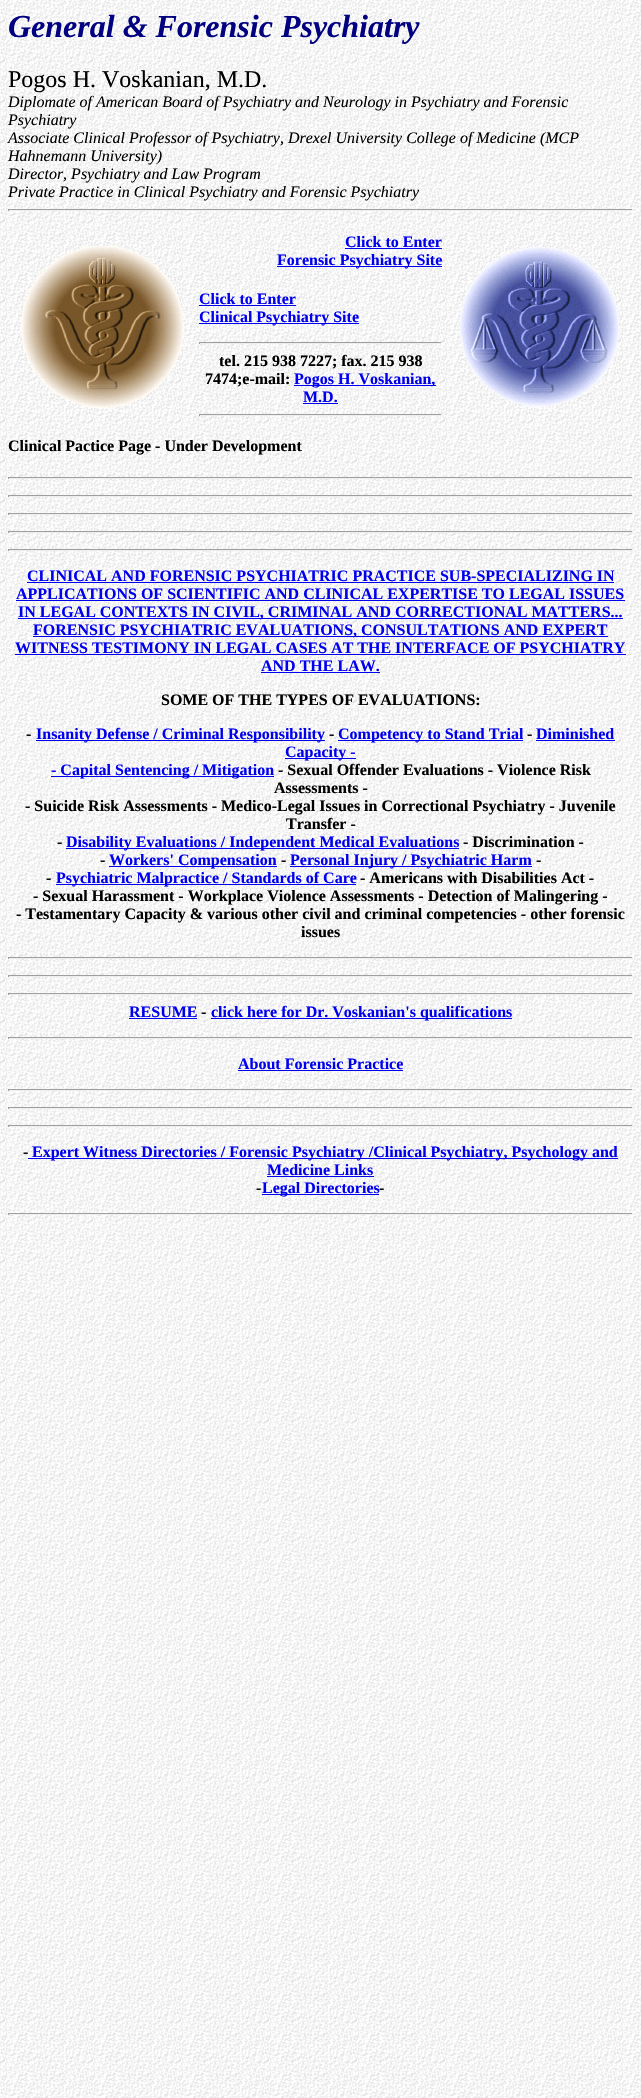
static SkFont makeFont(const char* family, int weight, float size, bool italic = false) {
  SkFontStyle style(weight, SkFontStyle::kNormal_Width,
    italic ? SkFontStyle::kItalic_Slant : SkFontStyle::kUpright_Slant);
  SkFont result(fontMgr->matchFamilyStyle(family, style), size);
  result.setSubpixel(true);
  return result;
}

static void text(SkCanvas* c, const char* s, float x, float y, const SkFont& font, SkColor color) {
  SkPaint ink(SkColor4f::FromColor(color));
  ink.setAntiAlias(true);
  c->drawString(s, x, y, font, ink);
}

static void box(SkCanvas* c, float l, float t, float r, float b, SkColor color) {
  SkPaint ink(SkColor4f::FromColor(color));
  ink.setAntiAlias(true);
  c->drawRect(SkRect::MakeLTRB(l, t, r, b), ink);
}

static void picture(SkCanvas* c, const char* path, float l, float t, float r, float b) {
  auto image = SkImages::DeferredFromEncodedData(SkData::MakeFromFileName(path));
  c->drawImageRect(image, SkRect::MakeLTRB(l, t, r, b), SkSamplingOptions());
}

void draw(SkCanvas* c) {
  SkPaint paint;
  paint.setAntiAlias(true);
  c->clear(0xffffffff);
  picture(c, "img_01.png", 0, 0, 641, 2098);
  SkFont face1 = makeFont("Liberation Serif", 700, 32, true);
  text(c, "General & Forensic Psychiatry", 8, 37, face1, 0xff000080);
  SkFont face2 = makeFont("Liberation Serif", 400, 24);
  text(c, "Pogos H. Voskanian, M.D.", 8, 87, face2, 0xff000000);
  SkFont face3 = makeFont("Liberation Serif", 400, 16, true);
  text(c, "Diplomate of American Board of Psychiatry and Neurology in Psychiatry and Forensic", 8, 107, face3, 0xff000000);
  text(c, "Psychiatry", 8, 125, face3, 0xff000000);
  text(c, "Associate Clinical Professor of Psychiatry, Drexel University College of Medicine (MCP", 8, 143, face3, 0xff000000);
  text(c, "Hahnemann University)", 8, 161, face3, 0xff000000);
  text(c, "Director, Psychiatry and Law Program", 8, 179, face3, 0xff000000);
  text(c, "Private Practice in Clinical Psychiatry and Forensic Psychiatry", 8, 197, face3, 0xff000000);
  box(c, 8, 209, 633, 210, 0xff9f9f9f);
  box(c, 632, 209, 633, 211, 0xffeeeeee);
  box(c, 8, 210, 633, 211, 0xffeeeeee);
  box(c, 8, 209, 9, 211, 0xff9f9f9f);
  SkFont face4 = makeFont("Liberation Serif", 700, 16);
  text(c, "Click to Enter", 345, 247, face4, 0xff0000ee);
  box(c, 345, 248, 442, 249, 0xff0000ee);
  box(c, 277, 266, 442, 267, 0xff0000ee);
  text(c, "Forensic Psychiatry Site", 277, 265, face4, 0xff0000ee);
  text(c, "Click to Enter", 199, 304, face4, 0xff0000ee);
  box(c, 199, 305, 296, 306, 0xff0000ee);
  box(c, 199, 323, 359, 324, 0xff0000ee);
  text(c, "Clinical Psychiatry Site", 199, 322, face4, 0xff0000ee);
  box(c, 199, 342, 442, 343, 0xff9f9f9f);
  box(c, 441, 342, 442, 344, 0xffeeeeee);
  box(c, 199, 343, 442, 344, 0xffeeeeee);
  box(c, 199, 342, 200, 344, 0xff9f9f9f);
  text(c, "tel. 215 938 7227; fax. 215 938", 219, 366, face4, 0xff000000);
  text(c, "7474;e-mail:", 205, 384, face4, 0xff000000);
  box(c, 294, 385, 436, 386, 0xff0000ee);
  text(c, "Pogos H. Voskanian,", 294, 384, face4, 0xff0000ee);
  text(c, "M.D.", 303, 402, face4, 0xff0000ee);
  box(c, 303, 403, 338, 404, 0xff0000ee);
  box(c, 199, 414, 442, 415, 0xff9f9f9f);
  box(c, 441, 414, 442, 416, 0xffeeeeee);
  box(c, 199, 415, 442, 416, 0xffeeeeee);
  box(c, 199, 414, 200, 416, 0xff9f9f9f);
  text(c, "Clinical Pactice Page - Under Development", 8, 451, face4, 0xff000000);
  box(c, 8, 477, 633, 478, 0xff9f9f9f);
  box(c, 632, 477, 633, 479, 0xffeeeeee);
  box(c, 8, 478, 633, 479, 0xffeeeeee);
  box(c, 8, 477, 9, 479, 0xff9f9f9f);
  box(c, 8, 495, 633, 496, 0xff9f9f9f);
  box(c, 632, 495, 633, 497, 0xffeeeeee);
  box(c, 8, 496, 633, 497, 0xffeeeeee);
  box(c, 8, 495, 9, 497, 0xff9f9f9f);
  box(c, 8, 513, 633, 514, 0xff9f9f9f);
  box(c, 632, 513, 633, 515, 0xffeeeeee);
  box(c, 8, 514, 633, 515, 0xffeeeeee);
  box(c, 8, 513, 9, 515, 0xff9f9f9f);
  box(c, 8, 531, 633, 532, 0xff9f9f9f);
  box(c, 632, 531, 633, 533, 0xffeeeeee);
  box(c, 8, 532, 633, 533, 0xffeeeeee);
  box(c, 8, 531, 9, 533, 0xff9f9f9f);
  box(c, 8, 549, 633, 550, 0xff9f9f9f);
  box(c, 632, 549, 633, 551, 0xffeeeeee);
  box(c, 8, 550, 633, 551, 0xffeeeeee);
  box(c, 8, 549, 9, 551, 0xff9f9f9f);
  text(c, "CLINICAL AND FORENSIC PSYCHIATRIC PRACTICE SUB-SPECIALIZING IN", 27, 581, face4, 0xff0000ee);
  box(c, 27, 582, 614, 583, 0xff0000ee);
  text(c, "APPLICATIONS OF SCIENTIFIC AND CLINICAL EXPERTISE TO LEGAL ISSUES", 16, 599, face4, 0xff0000ee);
  box(c, 16, 600, 625, 601, 0xff0000ee);
  box(c, 18, 618, 623, 619, 0xff0000ee);
  text(c, "IN LEGAL CONTEXTS IN CIVIL, CRIMINAL AND CORRECTIONAL MATTERS...", 18, 617, face4, 0xff0000ee);
  box(c, 33, 636, 608, 637, 0xff0000ee);
  text(c, "FORENSIC PSYCHIATRIC EVALUATIONS, CONSULTATIONS AND EXPERT", 33, 635, face4, 0xff0000ee);
  text(c, "WITNESS TESTIMONY IN LEGAL CASES AT THE INTERFACE OF PSYCHIATRY", 15, 653, face4, 0xff0000ee);
  box(c, 15, 654, 626, 655, 0xff0000ee);
  text(c, "AND THE LAW.", 261, 671, face4, 0xff0000ee);
  box(c, 261, 672, 380, 673, 0xff0000ee);
  text(c, "SOME OF THE TYPES OF EVALUATIONS:", 161, 705, face4, 0xff000000);
  text(c, "-", 26, 739, face4, 0xff000000);
  box(c, 36, 740, 325, 741, 0xff0000ee);
  text(c, "Insanity Defense / Criminal Responsibility", 36, 739, face4, 0xff0000ee);
  text(c, "-", 329, 739, face4, 0xff000000);
  box(c, 338, 740, 523, 741, 0xff0000ee);
  text(c, "Competency to Stand Trial", 338, 739, face4, 0xff0000ee);
  text(c, "-", 527, 739, face4, 0xff000000);
  text(c, "Diminished", 536, 739, face4, 0xff0000ee);
  box(c, 536, 740, 615, 741, 0xff0000ee);
  box(c, 285, 758, 356, 759, 0xff0000ee);
  text(c, "Capacity -", 285, 757, face4, 0xff0000ee);
  box(c, 51, 776, 274, 777, 0xff0000ee);
  text(c, "- Capital Sentencing / Mitigation", 51, 775, face4, 0xff0000ee);
  text(c, "- Sexual Offender Evaluations - Violence Risk", 278, 775, face4, 0xff000000);
  text(c, "Assessments -", 274, 793, face4, 0xff000000);
  text(c, "- Suicide Risk Assessments - Medico-Legal Issues in Correctional Psychiatry - Juvenile", 25, 811, face4, 0xff000000);
  text(c, "Transfer -", 286, 829, face4, 0xff000000);
  text(c, "-", 57, 847, face4, 0xff000000);
  box(c, 66, 848, 459, 849, 0xff0000ee);
  text(c, "Disability Evaluations / Independent Medical Evaluations", 66, 847, face4, 0xff0000ee);
  text(c, "- Discrimination -", 463, 847, face4, 0xff000000);
  text(c, "-", 100, 865, face4, 0xff000000);
  box(c, 109, 866, 277, 867, 0xff0000ee);
  text(c, "Workers' Compensation", 109, 865, face4, 0xff0000ee);
  text(c, "-", 281, 865, face4, 0xff000000);
  box(c, 290, 866, 532, 867, 0xff0000ee);
  text(c, "Personal Injury / Psychiatric Harm", 290, 865, face4, 0xff0000ee);
  text(c, "-", 536, 865, face4, 0xff000000);
  text(c, "-", 46, 883, face4, 0xff000000);
  box(c, 56, 884, 356, 885, 0xff0000ee);
  text(c, "Psychiatric Malpractice / Standards of Care", 56, 883, face4, 0xff0000ee);
  text(c, "- Americans with Disabilities Act -", 360, 883, face4, 0xff000000);
  text(c, "- Sexual Harassment - Workplace Violence Assessments - Detection of Malingering -", 33, 901, face4, 0xff000000);
  text(c, "- Testamentary Capacity & various other civil and criminal competencies - other forensic", 16, 919, face4, 0xff000000);
  text(c, "issues", 301, 937, face4, 0xff000000);
  box(c, 8, 957, 633, 958, 0xff9f9f9f);
  box(c, 632, 957, 633, 959, 0xffeeeeee);
  box(c, 8, 958, 633, 959, 0xffeeeeee);
  box(c, 8, 957, 9, 959, 0xff9f9f9f);
  box(c, 8, 975, 633, 976, 0xff9f9f9f);
  box(c, 632, 975, 633, 977, 0xffeeeeee);
  box(c, 8, 976, 633, 977, 0xffeeeeee);
  box(c, 8, 975, 9, 977, 0xff9f9f9f);
  box(c, 8, 993, 633, 994, 0xff9f9f9f);
  box(c, 632, 993, 633, 995, 0xffeeeeee);
  box(c, 8, 994, 633, 995, 0xffeeeeee);
  box(c, 8, 993, 9, 995, 0xff9f9f9f);
  text(c, "RESUME", 129, 1017, face4, 0xff0000ee);
  box(c, 129, 1018, 197, 1019, 0xff0000ee);
  text(c, "-", 201, 1017, face4, 0xff000000);
  box(c, 211, 1018, 512, 1019, 0xff0000ee);
  text(c, "click here for Dr. Voskanian's qualifications", 211, 1017, face4, 0xff0000ee);
  box(c, 8, 1037, 633, 1038, 0xff9f9f9f);
  box(c, 632, 1037, 633, 1039, 0xffeeeeee);
  box(c, 8, 1038, 633, 1039, 0xffeeeeee);
  box(c, 8, 1037, 9, 1039, 0xff9f9f9f);
  text(c, "About Forensic Practice", 238, 1069, face4, 0xff0000ee);
  box(c, 238, 1070, 403, 1071, 0xff0000ee);
  box(c, 8, 1089, 633, 1090, 0xff9f9f9f);
  box(c, 632, 1089, 633, 1091, 0xffeeeeee);
  box(c, 8, 1090, 633, 1091, 0xffeeeeee);
  box(c, 8, 1089, 9, 1091, 0xff9f9f9f);
  box(c, 8, 1107, 633, 1108, 0xff9f9f9f);
  box(c, 632, 1107, 633, 1109, 0xffeeeeee);
  box(c, 8, 1108, 633, 1109, 0xffeeeeee);
  box(c, 8, 1107, 9, 1109, 0xff9f9f9f);
  box(c, 8, 1125, 633, 1126, 0xff9f9f9f);
  box(c, 632, 1125, 633, 1127, 0xffeeeeee);
  box(c, 8, 1126, 633, 1127, 0xffeeeeee);
  box(c, 8, 1125, 9, 1127, 0xff9f9f9f);
  text(c, "-", 23, 1157, face4, 0xff000000);
  box(c, 28, 1158, 618, 1159, 0xff0000ee);
  text(c, "Expert Witness Directories / Forensic Psychiatry /Clinical Psychiatry, Psychology and", 32, 1157, face4, 0xff0000ee);
  text(c, "Medicine Links", 267, 1175, face4, 0xff0000ee);
  box(c, 267, 1176, 374, 1177, 0xff0000ee);
  text(c, "-", 256, 1193, face4, 0xff000000);
  box(c, 262, 1194, 379, 1195, 0xff0000ee);
  text(c, "Legal Directories", 262, 1193, face4, 0xff0000ee);
  text(c, "-", 379, 1193, face4, 0xff000000);
  box(c, 8, 1213, 633, 1214, 0xff9f9f9f);
  box(c, 632, 1213, 633, 1215, 0xffeeeeee);
  box(c, 8, 1214, 633, 1215, 0xffeeeeee);
  box(c, 8, 1213, 9, 1215, 0xff9f9f9f);
  picture(c, "img_02.png", 21, 245, 184, 408);
  picture(c, "img_03.png", 459, 246, 620, 407);
}
